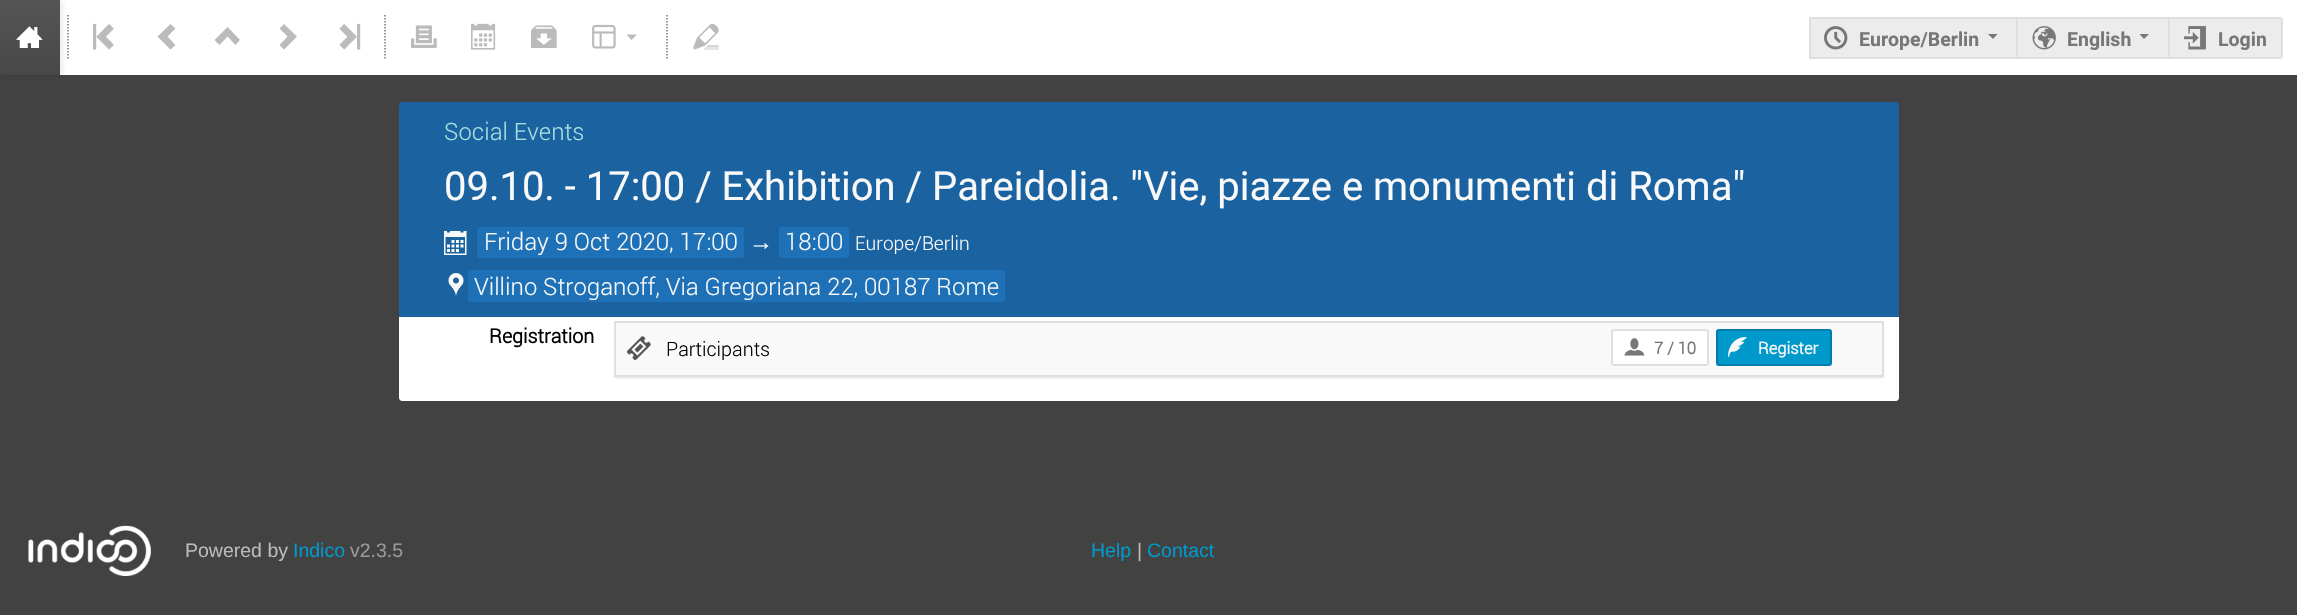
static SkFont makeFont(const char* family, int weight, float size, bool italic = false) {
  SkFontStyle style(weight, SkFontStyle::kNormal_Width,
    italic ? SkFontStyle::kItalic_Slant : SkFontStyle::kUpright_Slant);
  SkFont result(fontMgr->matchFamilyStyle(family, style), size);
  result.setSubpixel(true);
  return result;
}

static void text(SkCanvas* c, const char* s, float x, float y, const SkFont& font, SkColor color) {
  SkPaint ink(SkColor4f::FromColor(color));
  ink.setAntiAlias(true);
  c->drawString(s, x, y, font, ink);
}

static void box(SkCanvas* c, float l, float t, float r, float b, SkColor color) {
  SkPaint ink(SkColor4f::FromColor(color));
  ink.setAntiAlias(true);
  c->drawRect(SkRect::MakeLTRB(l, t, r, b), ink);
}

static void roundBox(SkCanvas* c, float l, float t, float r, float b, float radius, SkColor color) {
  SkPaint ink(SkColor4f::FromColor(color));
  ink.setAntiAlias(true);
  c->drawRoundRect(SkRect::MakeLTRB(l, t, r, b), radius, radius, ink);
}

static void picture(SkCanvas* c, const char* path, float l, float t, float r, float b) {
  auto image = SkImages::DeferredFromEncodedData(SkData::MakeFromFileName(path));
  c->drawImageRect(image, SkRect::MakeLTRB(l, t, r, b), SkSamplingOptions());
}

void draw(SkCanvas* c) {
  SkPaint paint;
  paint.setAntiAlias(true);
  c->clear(0xff424242);
  box(c, 60, 0, 2297, 75, 0xffffffff);
  paint.setColor(0x1a141414);
  paint.setMaskFilter(SkMaskFilter::MakeBlur(kNormal_SkBlurStyle, 3));
  c->drawRect(SkRect::MakeLTRB(2, 2, 62, 77), paint);
  paint.setMaskFilter(nullptr);
  {
    const SkColor colors[] = {0xff555555, 0xff484848};
    const float stops[] = {0, 1};
    const SkPoint ends[] = {{30, 0}, {30, 75}};
    paint.setShader(SkGradientShader::MakeLinear(ends, colors, stops, 2, SkTileMode::kClamp));
    paint.setAlpha(255);
  }
  c->drawRect(SkRect::MakeLTRB(0, 0, 60, 75), paint);
  picture(c, "img_01.png", 16, 26, 43, 48);
  paint.setStyle(SkPaint::kStroke_Style);
  paint.setStrokeWidth(1.5f);
  paint.setShader(nullptr);
  paint.setColor(0xff777777);
  paint.setPathEffect(SkDashPathEffect::Make({{1.5f, 1.5f}}, 0));
  c->drawPath(SkPathBuilder().moveTo(68, 15).lineTo(68, 60).detach(), paint);
  paint.setPathEffect(nullptr);
  picture(c, "img_02.png", 93, 23, 114, 50);
  paint.setStyle(SkPaint::kFill_Style);
  paint.setColor(0xffbbbbbb);
  c->drawPath(SkPathBuilder().moveTo(170.5f, 49.5f).lineTo(175.5f, 45).lineTo(167.5f, 36.5f).lineTo(175.5f, 28.5f).lineTo(170.5f, 24).lineTo(157.5f, 36.5f).close().detach(), paint);
  c->drawPath(SkPathBuilder().moveTo(214.5f, 40).lineTo(219.5f, 45).lineTo(227.5f, 36.5f).lineTo(235.5f, 45).lineTo(240, 40).lineTo(227.5f, 27).close().detach(), paint);
  c->drawPath(SkPathBuilder().moveTo(284, 24).lineTo(279.5f, 28.5f).lineTo(287.5f, 36.5f).lineTo(279.5f, 45).lineTo(284, 49.5f).lineTo(297, 36.5f).close().detach(), paint);
  picture(c, "img_03.png", 339, 23, 361, 50);
  paint.setStyle(SkPaint::kStroke_Style);
  paint.setColor(0xff777777);
  paint.setPathEffect(SkDashPathEffect::Make({{1.5f, 1.5f}}, 0));
  c->drawPath(SkPathBuilder().moveTo(385, 15).lineTo(385, 60).detach(), paint);
  paint.setPathEffect(nullptr);
  picture(c, "img_04.png", 411, 25, 437, 48);
  picture(c, "img_05.png", 471, 23, 496, 50);
  picture(c, "img_06.png", 531, 25, 557, 48);
  picture(c, "img_07.png", 592, 24, 616, 49);
  paint.setStyle(SkPaint::kFill_Style);
  paint.setColor(0xffbbbbbb);
  c->drawPath(SkPathBuilder().moveTo(626.5f, 34.5f).lineTo(631.5f, 40).lineTo(637, 34.5f).close().detach(), paint);
  paint.setStyle(SkPaint::kStroke_Style);
  paint.setColor(0xff777777);
  paint.setPathEffect(SkDashPathEffect::Make({{1.5f, 1.5f}}, 0));
  c->drawPath(SkPathBuilder().moveTo(667, 15).lineTo(667, 60).detach(), paint);
  paint.setPathEffect(nullptr);
  picture(c, "img_08.png", 693, 23, 719, 50);
  box(c, 1811, 19, 2016, 57, 0xffececec);
  box(c, 1809, 17, 2168, 19, 0xffdfdfdf);
  box(c, 1809, 57, 2168, 59, 0xffdfdfdf);
  box(c, 1809, 17, 1811, 59, 0xffdfdfdf);
  picture(c, "img_09.png", 1824, 26, 1848, 50);
  SkFont face1 = makeFont("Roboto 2", 700, 19.5f);
  text(c, "Europe/Berlin", 1859, 46, face1, 0xff777777);
  paint.setStyle(SkPaint::kFill_Style);
  c->drawPath(SkPathBuilder().moveTo(1988, 34).lineTo(1993, 39).lineTo(1997.5f, 34).close().detach(), paint);
  box(c, 2018, 19, 2168, 57, 0xffececec);
  box(c, 2016, 17, 2018, 59, 0xffdfdfdf);
  picture(c, "img_10.png", 2032, 26, 2056, 50);
  text(c, "English", 2067, 46, face1, 0xff777777);
  c->drawPath(SkPathBuilder().moveTo(2139.5f, 34).lineTo(2144, 39).lineTo(2149, 34).close().detach(), paint);
  paint.setColor(0xffececec);
  c->drawPath(SkPathBuilder().moveTo(2169, 18).lineTo(2280, 18).cubicTo(2281, 18, 2282, 19, 2282, 20).lineTo(2282, 56).cubicTo(2282, 57, 2281, 58, 2280, 58).lineTo(2169, 58).close().detach(), paint);
  paint.setStyle(SkPaint::kStroke_Style);
  paint.setStrokeWidth(2);
  paint.setColor(0xffdfdfdf);
  c->drawPath(SkPathBuilder().moveTo(2169, 18).lineTo(2280, 18).cubicTo(2281, 18, 2282, 19, 2282, 20).lineTo(2282, 56).cubicTo(2282, 57, 2281, 58, 2280, 58).lineTo(2169, 58).close().detach(), paint);
  picture(c, "img_11.png", 2184, 26, 2206, 50);
  text(c, "Login", 2218, 46, face1, 0xff777777);
  paint.setStyle(SkPaint::kFill_Style);
  paint.setColor(0xff1a63a0);
  c->drawPath(SkPathBuilder().moveTo(402, 102).lineTo(1896, 102).cubicTo(1897.5f, 102, 1899, 103.5f, 1899, 105).lineTo(1899, 317).lineTo(399, 317).lineTo(399, 105).cubicTo(399, 103.5f, 400.5f, 102, 402, 102).close().detach(), paint);
  SkFont face2 = makeFont("Roboto", 300, 24);
  text(c, "Social Events", 444, 140, face2, 0xffa8dede);
  SkFont face3 = makeFont("Roboto", 400, 40);
  text(c, "09.10. - 17:00 / Exhibition / Pareidolia. \"Vie, piazze e monumenti di Roma\"", 444, 200, face3, 0xfff9f9f9);
  picture(c, "img_12.png", 444, 231, 467, 255);
  roundBox(c, 477, 227, 744, 258, 3, 0xff1e71b6);
  text(c, "Friday 9 Oct 2020, 17:00", 484, 250, face2, 0xfff9f9f9);
  SkFont face4 = makeFont("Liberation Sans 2", 400, 24);
  text(c, "→", 749, 250, face4, 0xfff9f9f9);
  roundBox(c, 779, 227, 849, 258, 3, 0xff1e71b6);
  text(c, "18:00", 785, 250, face2, 0xfff9f9f9);
  SkFont face5 = makeFont("Roboto", 300, 19.25f);
  text(c, "Europe/Berlin", 855, 250, face5, 0xfff9f9f9);
  picture(c, "img_13.png", 448, 273, 464, 297);
  roundBox(c, 468, 270, 1005, 302, 3, 0xff1e71b6);
  text(c, "Villino Stroganoff, Via Gregoriana 22, 00187 Rome", 474, 295, face2, 0xfff9f9f9);
  paint.setColor(0xffffffff);
  c->drawPath(SkPathBuilder().moveTo(399, 317).lineTo(1899, 317).lineTo(1899, 398).cubicTo(1899, 399.5f, 1897.5f, 401, 1896, 401).lineTo(402, 401).cubicTo(400.5f, 401, 399, 399.5f, 399, 398).close().detach(), paint);
  SkFont face6 = makeFont("Roboto", 700, 19.75f);
  text(c, "Registration", 489, 343, face6, 0xff000000);
  paint.setColor(0xffdfdfdf);
  paint.setMaskFilter(SkMaskFilter::MakeBlur(kNormal_SkBlurStyle, 1));
  c->drawRect(SkRect::MakeLTRB(615, 326, 1883, 378), paint);
  paint.setMaskFilter(nullptr);
  paint.setColor(0xfff9f9f9);
  c->drawRect(SkRect::MakeLTRB(615, 322, 1883, 376), paint);
  paint.setStyle(SkPaint::kStroke_Style);
  paint.setColor(0xffdfdfdf);
  c->drawRect(SkRect::MakeLTRB(615, 322, 1883, 376), paint);
  picture(c, "img_14.png", 627, 336, 651, 360);
  SkFont face7 = makeFont("Roboto", 300, 19.75f);
  text(c, "Participants", 666, 356, face7, 0xff000000);
  paint.setStyle(SkPaint::kFill_Style);
  paint.setColor(0xffffffff);
  c->drawRoundRect(SkRect::MakeLTRB(1612, 330, 1708, 365), 2, 2, paint);
  paint.setStyle(SkPaint::kStroke_Style);
  paint.setColor(0xffdfdfdf);
  c->drawRoundRect(SkRect::MakeLTRB(1612, 330, 1708, 365), 2, 2, paint);
  picture(c, "img_15.png", 1624, 338, 1645, 356);
  SkFont face8 = makeFont("Roboto", 700, 16.5f);
  text(c, "7 / 10", 1654, 354, face8, 0xff777777);
  paint.setStyle(SkPaint::kFill_Style);
  paint.setColor(0xff0099cc);
  c->drawRoundRect(SkRect::MakeLTRB(1717, 330, 1831, 365), 2, 2, paint);
  paint.setStyle(SkPaint::kStroke_Style);
  paint.setColor(0xff007cac);
  c->drawRoundRect(SkRect::MakeLTRB(1717, 330, 1831, 365), 2, 2, paint);
  picture(c, "img_16.png", 1728, 336, 1747, 357);
  text(c, "Register", 1758, 354, face8, 0xfff9f9f9);
  picture(c, "img_17.png", 28, 525, 151, 576);
  SkFont face9 = makeFont("Liberation Sans", 400, 19.5f);
  text(c, "Powered by", 185, 557, face9, 0xffbbbbbb);
  text(c, "Indico", 293, 557, face9, 0xff0099cc);
  text(c, "v2.3.5", 350, 557, face9, 0xff999999);
  text(c, "Help", 1091, 557, face9, 0xff0099cc);
  text(c, "|", 1137, 557, face9, 0xffbbbbbb);
  text(c, "Contact", 1147, 557, face9, 0xff0099cc);
}
